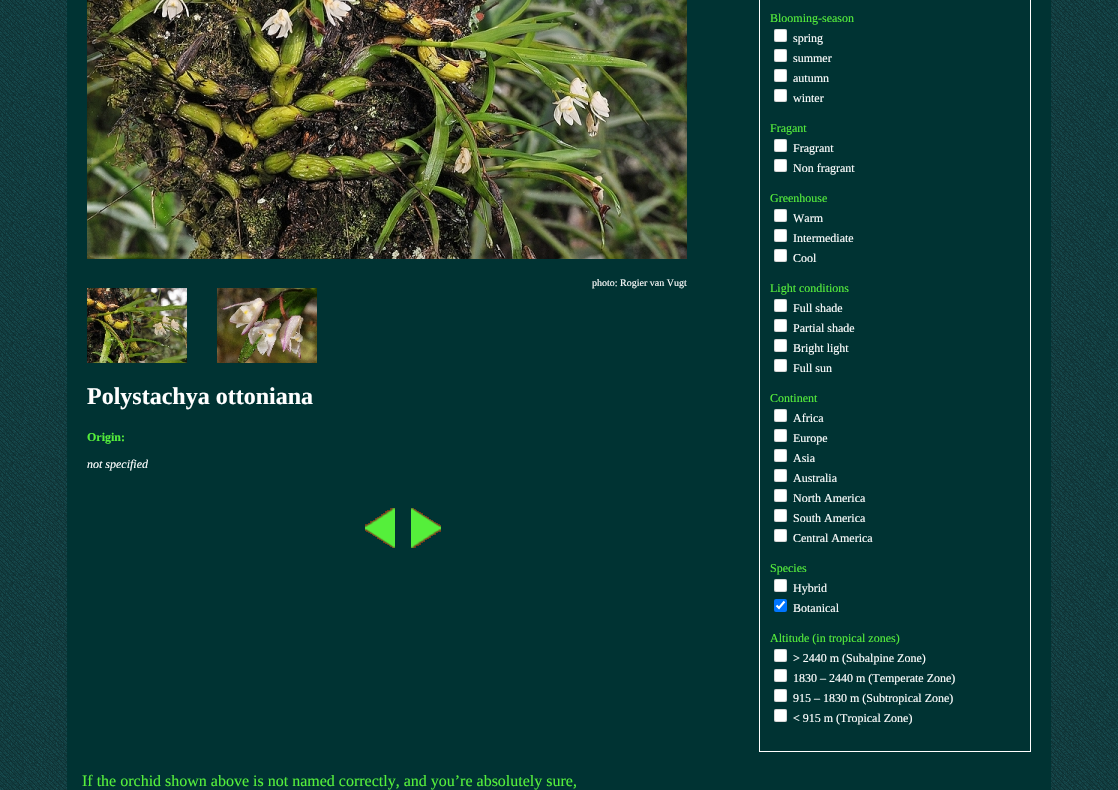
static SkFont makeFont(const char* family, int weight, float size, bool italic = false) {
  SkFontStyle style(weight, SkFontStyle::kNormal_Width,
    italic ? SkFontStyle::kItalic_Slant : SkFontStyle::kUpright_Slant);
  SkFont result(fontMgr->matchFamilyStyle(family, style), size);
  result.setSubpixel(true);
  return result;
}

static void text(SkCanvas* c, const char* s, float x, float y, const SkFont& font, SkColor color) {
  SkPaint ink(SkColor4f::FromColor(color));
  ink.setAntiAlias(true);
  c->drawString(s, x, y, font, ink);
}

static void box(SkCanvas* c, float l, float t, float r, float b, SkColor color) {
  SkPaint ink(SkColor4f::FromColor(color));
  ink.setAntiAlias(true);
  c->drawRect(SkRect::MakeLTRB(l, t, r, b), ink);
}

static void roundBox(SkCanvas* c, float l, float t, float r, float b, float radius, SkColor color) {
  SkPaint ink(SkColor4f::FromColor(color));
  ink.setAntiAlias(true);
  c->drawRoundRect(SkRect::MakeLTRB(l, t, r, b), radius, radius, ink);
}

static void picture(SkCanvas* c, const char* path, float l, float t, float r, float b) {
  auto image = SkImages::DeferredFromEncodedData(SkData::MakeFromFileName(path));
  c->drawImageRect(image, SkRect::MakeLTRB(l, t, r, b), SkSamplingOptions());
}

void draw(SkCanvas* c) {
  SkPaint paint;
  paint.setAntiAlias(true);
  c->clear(0xffffffff);
  picture(c, "img_01.png", 0, 0, 1118, 790);
  box(c, 67, 0, 1051, 790, 0xff003333);
  picture(c, "img_02.png", 87, 0, 687, 259);
  paint.setStyle(SkPaint::kStroke_Style);
  paint.setStrokeWidth(1);
  paint.setColor(0xffffffff);
  c->drawRect(SkRect::MakeLTRB(759.5f, -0.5f, 1030.5f, 751.5f), paint);
  SkFont face1 = makeFont("Liberation Serif", 400, 12);
  text(c, "Blooming-season", 770, 22, face1, 0xff55ef3b);
  roundBox(c, 774, 29, 787, 42, 2, 0xffffffff);
  paint.setColor(0x4d767676);
  c->drawRoundRect(SkRect::MakeLTRB(774.5f, 29.5f, 786.5f, 41.5f), 1.5f, 1.5f, paint);
  text(c, "spring", 793, 42, face1, 0xffffffff);
  roundBox(c, 774, 49, 787, 62, 2, 0xffffffff);
  c->drawRoundRect(SkRect::MakeLTRB(774.5f, 49.5f, 786.5f, 61.5f), 1.5f, 1.5f, paint);
  text(c, "summer", 793, 62, face1, 0xffffffff);
  roundBox(c, 774, 69, 787, 82, 2, 0xffffffff);
  c->drawRoundRect(SkRect::MakeLTRB(774.5f, 69.5f, 786.5f, 81.5f), 1.5f, 1.5f, paint);
  text(c, "autumn", 793, 82, face1, 0xffffffff);
  roundBox(c, 774, 89, 787, 102, 2, 0xffffffff);
  c->drawRoundRect(SkRect::MakeLTRB(774.5f, 89.5f, 786.5f, 101.5f), 1.5f, 1.5f, paint);
  text(c, "winter", 793, 102, face1, 0xffffffff);
  text(c, "Fragant", 770, 132, face1, 0xff55ef3b);
  roundBox(c, 774, 139, 787, 152, 2, 0xffffffff);
  c->drawRoundRect(SkRect::MakeLTRB(774.5f, 139.5f, 786.5f, 151.5f), 1.5f, 1.5f, paint);
  text(c, "Fragrant", 793, 152, face1, 0xffffffff);
  roundBox(c, 774, 159, 787, 172, 2, 0xffffffff);
  c->drawRoundRect(SkRect::MakeLTRB(774.5f, 159.5f, 786.5f, 171.5f), 1.5f, 1.5f, paint);
  text(c, "Non fragrant", 793, 172, face1, 0xffffffff);
  text(c, "Greenhouse", 770, 202, face1, 0xff55ef3b);
  roundBox(c, 774, 209, 787, 222, 2, 0xffffffff);
  c->drawRoundRect(SkRect::MakeLTRB(774.5f, 209.5f, 786.5f, 221.5f), 1.5f, 1.5f, paint);
  text(c, "Warm", 793, 222, face1, 0xffffffff);
  roundBox(c, 774, 229, 787, 242, 2, 0xffffffff);
  c->drawRoundRect(SkRect::MakeLTRB(774.5f, 229.5f, 786.5f, 241.5f), 1.5f, 1.5f, paint);
  text(c, "Intermediate", 793, 242, face1, 0xffffffff);
  roundBox(c, 774, 249, 787, 262, 2, 0xffffffff);
  c->drawRoundRect(SkRect::MakeLTRB(774.5f, 249.5f, 786.5f, 261.5f), 1.5f, 1.5f, paint);
  text(c, "Cool", 793, 262, face1, 0xffffffff);
  text(c, "Light conditions", 770, 292, face1, 0xff55ef3b);
  roundBox(c, 774, 299, 787, 312, 2, 0xffffffff);
  c->drawRoundRect(SkRect::MakeLTRB(774.5f, 299.5f, 786.5f, 311.5f), 1.5f, 1.5f, paint);
  text(c, "Full shade", 793, 312, face1, 0xffffffff);
  roundBox(c, 774, 319, 787, 332, 2, 0xffffffff);
  c->drawRoundRect(SkRect::MakeLTRB(774.5f, 319.5f, 786.5f, 331.5f), 1.5f, 1.5f, paint);
  text(c, "Partial shade", 793, 332, face1, 0xffffffff);
  roundBox(c, 774, 339, 787, 352, 2, 0xffffffff);
  c->drawRoundRect(SkRect::MakeLTRB(774.5f, 339.5f, 786.5f, 351.5f), 1.5f, 1.5f, paint);
  text(c, "Bright light", 793, 352, face1, 0xffffffff);
  roundBox(c, 774, 359, 787, 372, 2, 0xffffffff);
  c->drawRoundRect(SkRect::MakeLTRB(774.5f, 359.5f, 786.5f, 371.5f), 1.5f, 1.5f, paint);
  text(c, "Full sun", 793, 372, face1, 0xffffffff);
  text(c, "Continent", 770, 402, face1, 0xff55ef3b);
  roundBox(c, 774, 409, 787, 422, 2, 0xffffffff);
  c->drawRoundRect(SkRect::MakeLTRB(774.5f, 409.5f, 786.5f, 421.5f), 1.5f, 1.5f, paint);
  text(c, "Africa", 793, 422, face1, 0xffffffff);
  roundBox(c, 774, 429, 787, 442, 2, 0xffffffff);
  c->drawRoundRect(SkRect::MakeLTRB(774.5f, 429.5f, 786.5f, 441.5f), 1.5f, 1.5f, paint);
  text(c, "Europe", 793, 442, face1, 0xffffffff);
  roundBox(c, 774, 449, 787, 462, 2, 0xffffffff);
  c->drawRoundRect(SkRect::MakeLTRB(774.5f, 449.5f, 786.5f, 461.5f), 1.5f, 1.5f, paint);
  text(c, "Asia", 793, 462, face1, 0xffffffff);
  roundBox(c, 774, 469, 787, 482, 2, 0xffffffff);
  c->drawRoundRect(SkRect::MakeLTRB(774.5f, 469.5f, 786.5f, 481.5f), 1.5f, 1.5f, paint);
  text(c, "Australia", 793, 482, face1, 0xffffffff);
  roundBox(c, 774, 489, 787, 502, 2, 0xffffffff);
  c->drawRoundRect(SkRect::MakeLTRB(774.5f, 489.5f, 786.5f, 501.5f), 1.5f, 1.5f, paint);
  text(c, "North America", 793, 502, face1, 0xffffffff);
  roundBox(c, 774, 509, 787, 522, 2, 0xffffffff);
  c->drawRoundRect(SkRect::MakeLTRB(774.5f, 509.5f, 786.5f, 521.5f), 1.5f, 1.5f, paint);
  text(c, "South America", 793, 522, face1, 0xffffffff);
  roundBox(c, 774, 529, 787, 542, 2, 0xffffffff);
  c->drawRoundRect(SkRect::MakeLTRB(774.5f, 529.5f, 786.5f, 541.5f), 1.5f, 1.5f, paint);
  text(c, "Central America", 793, 542, face1, 0xffffffff);
  text(c, "Species", 770, 572, face1, 0xff55ef3b);
  roundBox(c, 774, 579, 787, 592, 2, 0xffffffff);
  c->drawRoundRect(SkRect::MakeLTRB(774.5f, 579.5f, 786.5f, 591.5f), 1.5f, 1.5f, paint);
  text(c, "Hybrid", 793, 592, face1, 0xffffffff);
  roundBox(c, 774, 599, 787, 612, 2, 0xff0075ff);
  paint.setStrokeWidth(2.1f);
  paint.setColor(0xffffffff);
  c->drawPath(SkPathBuilder().moveTo(776.5f, 605.5f).lineTo(779, 608).lineTo(784.5f, 601.5f).detach(), paint);
  text(c, "Botanical", 793, 612, face1, 0xffffffff);
  text(c, "Altitude (in tropical zones)", 770, 642, face1, 0xff55ef3b);
  roundBox(c, 774, 649, 787, 662, 2, 0xffffffff);
  paint.setStrokeWidth(1);
  paint.setColor(0x4d767676);
  c->drawRoundRect(SkRect::MakeLTRB(774.5f, 649.5f, 786.5f, 661.5f), 1.5f, 1.5f, paint);
  text(c, "> 2440 m (Subalpine Zone)", 793, 662, face1, 0xffffffff);
  roundBox(c, 774, 669, 787, 682, 2, 0xffffffff);
  c->drawRoundRect(SkRect::MakeLTRB(774.5f, 669.5f, 786.5f, 681.5f), 1.5f, 1.5f, paint);
  text(c, "1830 – 2440 m (Temperate Zone)", 793, 682, face1, 0xffffffff);
  roundBox(c, 774, 689, 787, 702, 2, 0xffffffff);
  c->drawRoundRect(SkRect::MakeLTRB(774.5f, 689.5f, 786.5f, 701.5f), 1.5f, 1.5f, paint);
  text(c, "915 – 1830 m (Subtropical Zone)", 793, 702, face1, 0xffffffff);
  roundBox(c, 774, 709, 787, 722, 2, 0xffffffff);
  c->drawRoundRect(SkRect::MakeLTRB(774.5f, 709.5f, 786.5f, 721.5f), 1.5f, 1.5f, paint);
  text(c, "< 915 m (Tropical Zone)", 793, 722, face1, 0xffffffff);
  SkFont face2 = makeFont("Liberation Serif", 400, 10);
  text(c, "photo: Rogier van Vugt", 592, 286, face2, 0xffffffff);
  picture(c, "img_03.png", 87, 288, 187, 363);
  picture(c, "img_04.png", 217, 288, 317, 363);
  SkFont face3 = makeFont("Liberation Serif", 700, 24);
  text(c, "Polystachya ottoniana", 87, 404, face3, 0xffffffff);
  SkFont face4 = makeFont("Liberation Serif", 700, 12);
  text(c, "Origin:", 87, 441, face4, 0xff55ef3b);
  SkFont face5 = makeFont("Liberation Serif", 400, 12, true);
  text(c, "not specified", 87, 468, face5, 0xffffffff);
  picture(c, "img_05.png", 365, 508, 395, 548);
  picture(c, "img_06.png", 411, 508, 441, 548);
  SkFont face6 = makeFont("Liberation Serif", 400, 16);
  text(c, "If the orchid shown above is not named correctly, and you’re absolutely sure,", 82, 786, face6, 0xff55ef3b);
}
